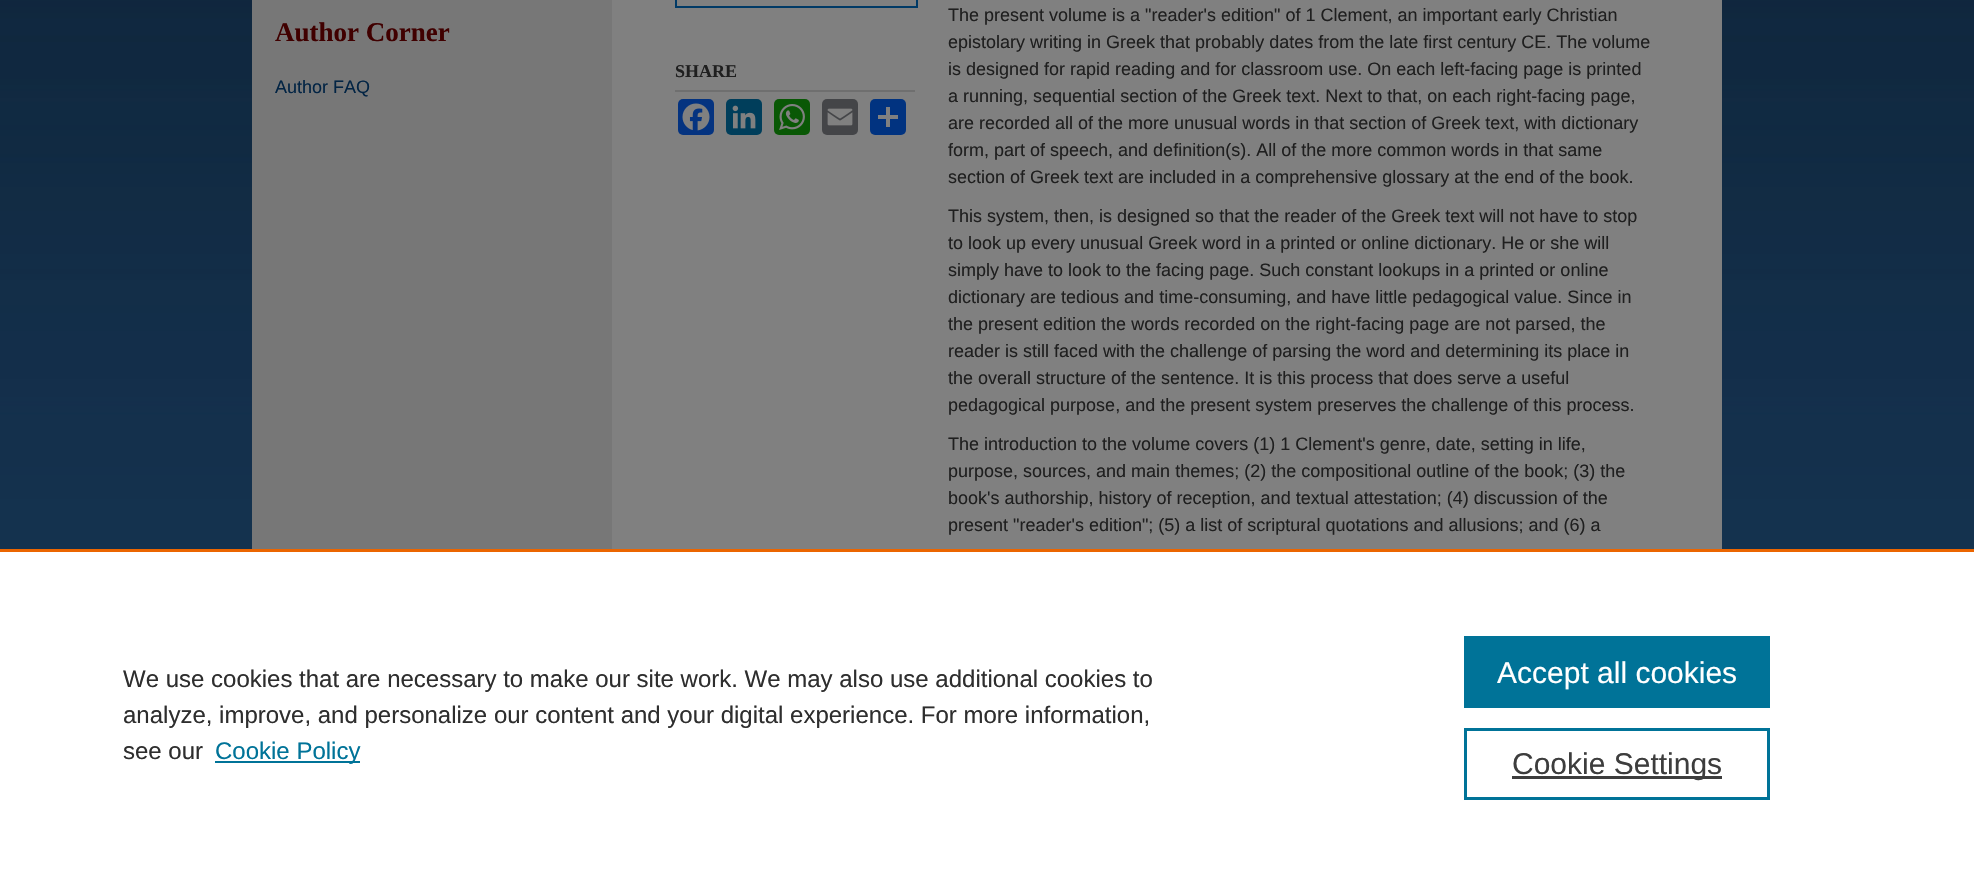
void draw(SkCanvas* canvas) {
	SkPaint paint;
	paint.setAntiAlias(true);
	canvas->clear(0xffffffff);
	canvas->drawImageRect(SkImages::DeferredFromEncodedData(SkData::MakeFromFileName("img1.png")), SkRect::MakeXYWH(0, 0, 1974, 549), SkSamplingOptions());
	paint.setColor(0xff777777);
	canvas->drawRect(SkRect::MakeXYWH(252, 0, 360, 549), paint);
	paint.setColor(0xff808080);
	canvas->drawRect(SkRect::MakeXYWH(612, 0, 1110, 549), paint);
	SkFont f1(fontMgr->matchFamilyStyle("Liberation Serif", SkFontStyle::Bold()), 27);
	f1.setSubpixel(true);
	paint.setColor(0xff400000);
	canvas->drawString("Author Corner", 275, 41, f1, paint);
	SkFont f2(fontMgr->matchFamilyStyle("Liberation Sans", SkFontStyle::Normal()), 18);
	f2.setSubpixel(true);
	paint.setColor(0xff022444);
	canvas->drawString("Author FAQ", 275, 93, f2, paint);
	paint.setStroke(true);
	paint.setStrokeWidth(2);
	paint.setColor(0xff003a66);
	canvas->drawRect(SkRect::MakeXYWH(676, -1, 241, 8), paint);
	paint.setStroke(false);
	paint.setColor(0xff6f6f6f);
	canvas->drawRect(SkRect::MakeXYWH(675, 90, 240, 2), paint);
	SkFont f3(fontMgr->matchFamilyStyle("Liberation Serif", SkFontStyle::Bold()), 18);
	f3.setSubpixel(true);
	paint.setColor(0xff1f1f1f);
	canvas->drawString("SHARE", 675, 77, f3, paint);
	paint.setColor(0xff043380);
	canvas->drawRoundRect(SkRect::MakeXYWH(678, 99, 36, 36), 5, 5, paint);
	canvas->drawImageRect(SkImages::DeferredFromEncodedData(SkData::MakeFromFileName("img2.png")), SkRect::MakeXYWH(682, 103, 28, 28), SkSamplingOptions());
	paint.setColor(0xff003e5b);
	canvas->drawRoundRect(SkRect::MakeXYWH(726, 99, 36, 36), 5, 5, paint);
	canvas->drawImageRect(SkImages::DeferredFromEncodedData(SkData::MakeFromFileName("img3.png")), SkRect::MakeXYWH(732, 105, 24, 24), SkSamplingOptions());
	paint.setColor(0xff095805);
	canvas->drawRoundRect(SkRect::MakeXYWH(774, 99, 36, 36), 5, 5, paint);
	canvas->drawImageRect(SkImages::DeferredFromEncodedData(SkData::MakeFromFileName("img4.png")), SkRect::MakeXYWH(779, 104, 26, 26), SkSamplingOptions());
	paint.setColor(0xff444548);
	canvas->drawRoundRect(SkRect::MakeXYWH(822, 99, 36, 36), 5, 5, paint);
	canvas->drawImageRect(SkImages::DeferredFromEncodedData(SkData::MakeFromFileName("img5.png")), SkRect::MakeXYWH(827, 108, 26, 18), SkSamplingOptions());
	paint.setColor(0xff013380);
	canvas->drawRoundRect(SkRect::MakeXYWH(870, 99, 36, 36), 5, 5, paint);
	paint.setColor(0xff808080);
	canvas->drawRect(SkRect::MakeXYWH(886, 107, 4, 20), paint);
	canvas->drawRect(SkRect::MakeXYWH(878, 115, 20, 4), paint);
	paint.setColor(0xff1f1f1f);
	canvas->drawString("The present volume is a \"reader's edition\" of 1 Clement, an important early Christian", 948, 21, f2, paint);
	canvas->drawString("epistolary writing in Greek that probably dates from the late first century CE. The volume", 948, 48, f2, paint);
	canvas->drawString("is designed for rapid reading and for classroom use. On each left-facing page is printed", 948, 75, f2, paint);
	canvas->drawString("a running, sequential section of the Greek text. Next to that, on each right-facing page,", 948, 102, f2, paint);
	canvas->drawString("are recorded all of the more unusual words in that section of Greek text, with dictionary", 948, 129, f2, paint);
	canvas->drawString("form, part of speech, and definition(s). All of the more common words in that same", 948, 156, f2, paint);
	canvas->drawString("section of Greek text are included in a comprehensive glossary at the end of the book.", 948, 183, f2, paint);
	canvas->drawString("This system, then, is designed so that the reader of the Greek text will not have to stop", 948, 222, f2, paint);
	canvas->drawString("to look up every unusual Greek word in a printed or online dictionary. He or she will", 948, 249, f2, paint);
	canvas->drawString("simply have to look to the facing page. Such constant lookups in a printed or online", 948, 276, f2, paint);
	canvas->drawString("dictionary are tedious and time-consuming, and have little pedagogical value. Since in", 948, 303, f2, paint);
	canvas->drawString("the present edition the words recorded on the right-facing page are not parsed, the", 948, 330, f2, paint);
	canvas->drawString("reader is still faced with the challenge of parsing the word and determining its place in", 948, 357, f2, paint);
	canvas->drawString("the overall structure of the sentence. It is this process that does serve a useful", 948, 384, f2, paint);
	canvas->drawString("pedagogical purpose, and the present system preserves the challenge of this process.", 948, 411, f2, paint);
	canvas->drawString("The introduction to the volume covers (1) 1 Clement's genre, date, setting in life,", 948, 450, f2, paint);
	canvas->drawString("purpose, sources, and main themes; (2) the compositional outline of the book; (3) the", 948, 477, f2, paint);
	canvas->drawString("book's authorship, history of reception, and textual attestation; (4) discussion of the", 948, 504, f2, paint);
	canvas->drawString("present \"reader's edition\"; (5) a list of scriptural quotations and allusions; and (6) a", 948, 531, f2, paint);
	paint.setColor(0xffeb6500);
	canvas->drawRect(SkRect::MakeXYWH(0, 549, 1974, 3), paint);
	SkFont f4(fontMgr->matchFamilyStyle("Liberation Sans", SkFontStyle::Normal()), 24);
	f4.setSubpixel(true);
	paint.setColor(0xff2e2e2e);
	canvas->drawString("We use cookies that are necessary to make our site work. We may also use additional cookies to", 123, 687, f4, paint);
	canvas->drawString("analyze, improve, and personalize our content and your digital experience. For more information,", 123, 723, f4, paint);
	canvas->drawString("see our", 123, 759, f4, paint);
	paint.setColor(0xff007398);
	canvas->drawRect(SkRect::MakeXYWH(215, 761, 145, 2), paint);
	canvas->drawString("Cookie Policy", 215, 759, f4, paint);
	canvas->drawRect(SkRect::MakeXYWH(1464, 636, 306, 72), paint);
	SkFont f5(fontMgr->matchFamilyStyle("Liberation Sans", SkFontStyle::Normal()), 30);
	f5.setSubpixel(true);
	paint.setColor(0xffffffff);
	canvas->drawString("Accept all cookies", 1497, 683, f5, paint);
	paint.setStroke(true);
	paint.setStrokeWidth(3);
	paint.setColor(0xff007398);
	canvas->drawRect(SkRect::MakeXYWH(1465.5, 729.5, 303, 69), paint);
	paint.setStroke(false);
	paint.setColor(0xff3d3d3d);
	canvas->drawRect(SkRect::MakeXYWH(1512, 776, 210, 3), paint);
	canvas->drawString("Cookie Settings", 1512, 774, f5, paint);
}
